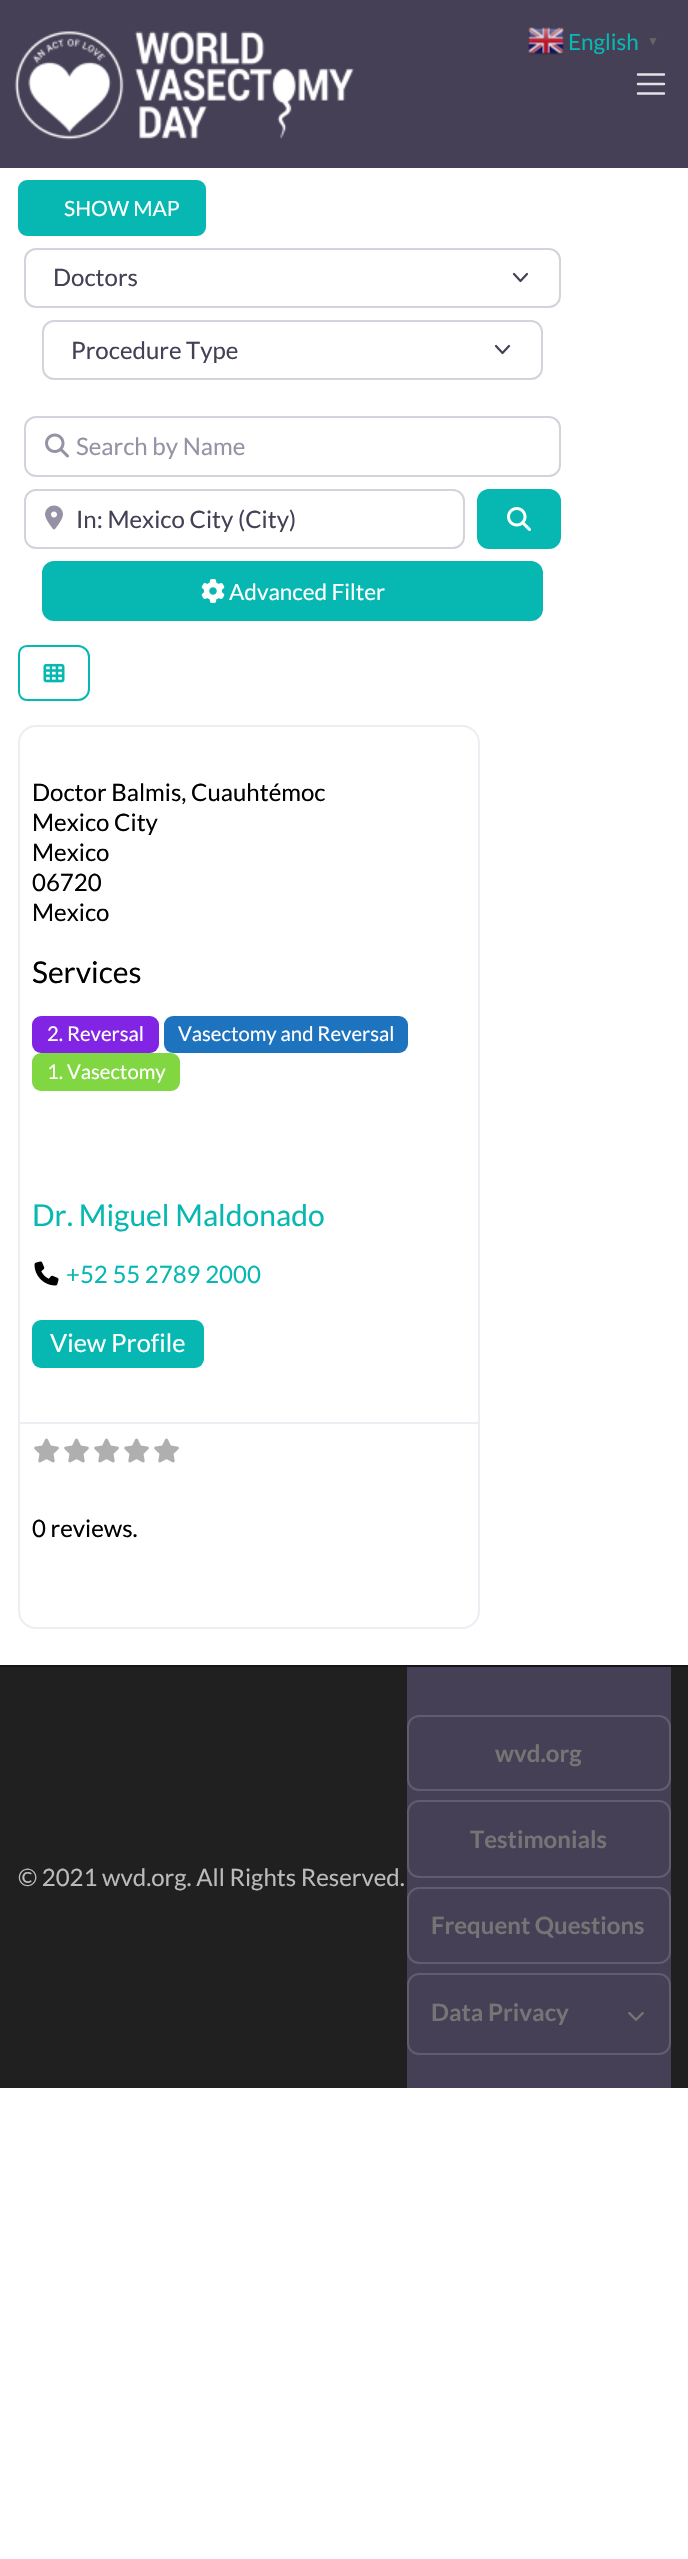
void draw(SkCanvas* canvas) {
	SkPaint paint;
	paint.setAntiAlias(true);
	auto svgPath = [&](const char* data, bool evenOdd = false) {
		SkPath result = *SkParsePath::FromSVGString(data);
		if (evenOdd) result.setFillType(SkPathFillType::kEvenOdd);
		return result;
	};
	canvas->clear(0xffffffff);
	paint.setColor(0xff454056);
	canvas->drawRect(SkRect::MakeXYWH(0, 0, 688, 168), paint);
	canvas->drawImageRect(SkImages::DeferredFromEncodedData(SkData::MakeFromFileName("img1.png")), SkRect::MakeXYWH(14, 31, 341, 109), SkSamplingOptions());
	paint.setStroke(true);
	paint.setStrokeWidth(2.4);
	paint.setStrokeCap(SkPaint::kRound_Cap);
	paint.setColor(0xffe3e2e6);
	canvas->drawPath(svgPath("M638 74.5H664M638 84H664M638 93.5H664"), paint);
	canvas->drawImageRect(SkImages::DeferredFromEncodedData(SkData::MakeFromFileName("img2.png")), SkRect::MakeXYWH(528, 27, 36, 28), SkSamplingOptions());
	SkFont f1(fontMgr->matchFamilyStyle("Lato", SkFontStyle::Normal()), 22.5);
	f1.setSubpixel(true);
	paint.setStroke(false);
	paint.setColor(0xff07b8b2);
	canvas->drawString("English", 568, 50, f1, paint);
	SkFont f2(fontMgr->matchFamilyStyle("Liberation Sans", SkFontStyle::Bold()), 12);
	f2.setSubpixel(true);
	paint.setColor(0xff666666);
	canvas->drawString("▼", 647, 45, f2, paint);
	paint.setColor(0xff07b8b2);
	canvas->drawRoundRect(SkRect::MakeXYWH(19, 181, 186, 54), 8, 8, paint);
	paint.setStroke(true);
	paint.setStrokeWidth(2);
	paint.setStrokeCap(SkPaint::kButt_Cap);
	canvas->drawRoundRect(SkRect::MakeXYWH(19, 181, 186, 54), 8, 8, paint);
	SkFont f3(fontMgr->matchFamilyStyle("Lato", SkFontStyle::Normal()), 21);
	f3.setSubpixel(true);
	paint.setStroke(false);
	paint.setColor(0xffffffff);
	canvas->drawString("SHOW MAP", 64, 216, f3, paint);
	paint.setStroke(true);
	paint.setStrokeWidth(2.2);
	paint.setStrokeCap(SkPaint::kRound_Cap);
	paint.setStrokeJoin(SkPaint::kRound_Join);
	paint.setColor(0xff454056);
	canvas->drawPath(svgPath("M514 274L520.5 281L527 274"), paint);
	paint.setStrokeWidth(2);
	paint.setStrokeCap(SkPaint::kButt_Cap);
	paint.setStrokeJoin(SkPaint::kMiter_Join);
	paint.setColor(0xffd5d2dc);
	canvas->drawRoundRect(SkRect::MakeXYWH(25, 249, 535, 58), 11, 11, paint);
	SkFont f4(fontMgr->matchFamilyStyle("Lato", SkFontStyle::Normal()), 24);
	f4.setSubpixel(true);
	paint.setStroke(false);
	paint.setColor(0xff454056);
	canvas->drawString("Doctors", 53, 286, f4, paint);
	paint.setStroke(true);
	paint.setStrokeWidth(2.2);
	paint.setStrokeCap(SkPaint::kRound_Cap);
	paint.setStrokeJoin(SkPaint::kRound_Join);
	canvas->drawPath(svgPath("M496 346L502.5 353L509 346"), paint);
	paint.setStrokeWidth(2);
	paint.setStrokeCap(SkPaint::kButt_Cap);
	paint.setStrokeJoin(SkPaint::kMiter_Join);
	paint.setColor(0xffd5d2dc);
	canvas->drawRoundRect(SkRect::MakeXYWH(43, 321, 499, 58), 11, 11, paint);
	paint.setStroke(false);
	paint.setColor(0xff454056);
	canvas->drawString("Procedure Type", 71, 359, f4, paint);
	paint.setStroke(true);
	paint.setColor(0xffd5d2dc);
	canvas->drawRoundRect(SkRect::MakeXYWH(25, 417, 535, 59), 11, 11, paint);
	canvas->drawImageRect(SkImages::DeferredFromEncodedData(SkData::MakeFromFileName("img3.png")), SkRect::MakeXYWH(45, 433, 24, 25), SkSamplingOptions());
	paint.setStroke(false);
	paint.setColor(0xff9691a4);
	canvas->drawString("Search by Name", 76, 455, f4, paint);
	paint.setStroke(true);
	paint.setColor(0xffd5d2dc);
	canvas->drawRoundRect(SkRect::MakeXYWH(25, 490, 439, 58), 11, 11, paint);
	canvas->drawImageRect(SkImages::DeferredFromEncodedData(SkData::MakeFromFileName("img4.png")), SkRect::MakeXYWH(45, 505, 18, 25), SkSamplingOptions());
	paint.setStroke(false);
	paint.setColor(0xff454056);
	canvas->drawString("In: Mexico City (City)", 76, 528, f4, paint);
	paint.setColor(0xff07b8b2);
	canvas->drawRoundRect(SkRect::MakeXYWH(478, 490, 82, 58), 11, 11, paint);
	paint.setStroke(true);
	canvas->drawRoundRect(SkRect::MakeXYWH(478, 490, 82, 58), 11, 11, paint);
	canvas->drawImageRect(SkImages::DeferredFromEncodedData(SkData::MakeFromFileName("img5.png")), SkRect::MakeXYWH(507, 507, 24, 24), SkSamplingOptions());
	paint.setStroke(false);
	canvas->drawRoundRect(SkRect::MakeXYWH(43, 562, 499, 58), 11, 11, paint);
	paint.setStroke(true);
	canvas->drawRoundRect(SkRect::MakeXYWH(43, 562, 499, 58), 11, 11, paint);
	canvas->drawImageRect(SkImages::DeferredFromEncodedData(SkData::MakeFromFileName("img6.png")), SkRect::MakeXYWH(201, 579, 24, 24), SkSamplingOptions());
	paint.setStroke(false);
	paint.setColor(0xffffffff);
	canvas->drawString("Advanced Filter", 229, 600, f1, paint);
	paint.setStroke(true);
	paint.setColor(0xff07b8b2);
	canvas->drawPath(svgPath("M27 646H78C84 646 89 651 89 657V689C89 695 84 700 78 700H27C22.5 700 19 696.5 19 692V654C19 649.5 22.5 646 27 646Z"), paint);
	canvas->drawImageRect(SkImages::DeferredFromEncodedData(SkData::MakeFromFileName("img7.png")), SkRect::MakeXYWH(43, 663, 22, 20), SkSamplingOptions());
	paint.setColor(0xffefecf3);
	canvas->drawRoundRect(SkRect::MakeXYWH(19, 726, 460, 902), 17, 17, paint);
	paint.setStroke(false);
	paint.setColor(0xff000000);
	canvas->drawString("Doctor Balmis, Cuauhtémoc", 32, 801, f4, paint);
	canvas->drawString("Mexico City", 32, 831, f4, paint);
	canvas->drawString("Mexico", 32, 861, f4, paint);
	canvas->drawString("06720", 32, 891, f4, paint);
	canvas->drawString("Mexico", 32, 921, f4, paint);
	SkFont f5(fontMgr->matchFamilyStyle("Lato", SkFontStyle::Normal()), 30);
	f5.setSubpixel(true);
	canvas->drawString("Services", 32, 983, f5, paint);
	paint.setColor(0xff8224e3);
	canvas->drawRoundRect(SkRect::MakeXYWH(32, 1016, 127, 37), 9, 9, paint);
	SkFont f6(fontMgr->matchFamilyStyle("Lato", SkFontStyle::Normal()), 20.25);
	f6.setSubpixel(true);
	paint.setColor(0xffffffff);
	canvas->drawString("2. Reversal", 47, 1041, f6, paint);
	paint.setColor(0xff1e73be);
	canvas->drawRoundRect(SkRect::MakeXYWH(164, 1016, 244, 37), 9, 9, paint);
	paint.setColor(0xffffffff);
	canvas->drawString("Vasectomy and Reversal", 178, 1041, f6, paint);
	paint.setColor(0xff81d742);
	canvas->drawRoundRect(SkRect::MakeXYWH(32, 1053, 148, 38), 9, 9, paint);
	paint.setColor(0xffffffff);
	canvas->drawString("1. Vasectomy", 47, 1079, f6, paint);
	paint.setColor(0xff07b8b2);
	canvas->drawString("Dr. Miguel Maldonado", 32, 1226, f5, paint);
	canvas->drawImageRect(SkImages::DeferredFromEncodedData(SkData::MakeFromFileName("img8.png")), SkRect::MakeXYWH(34, 1261, 25, 25), SkSamplingOptions());
	canvas->drawString("+52 55 2789 2000", 66, 1283, f4, paint);
	canvas->drawRoundRect(SkRect::MakeXYWH(32, 1320, 172, 48), 9, 9, paint);
	SkFont f7(fontMgr->matchFamilyStyle("Lato", SkFontStyle::Normal()), 25.25);
	f7.setSubpixel(true);
	paint.setColor(0xffffffff);
	canvas->drawString("View Profile", 50, 1352, f7, paint);
	paint.setColor(0xffefecf3);
	canvas->drawRect(SkRect::MakeXYWH(20, 1422, 459, 2), paint);
	canvas->drawImageRect(SkImages::DeferredFromEncodedData(SkData::MakeFromFileName("img9.png")), SkRect::MakeXYWH(34, 1438, 25, 25), SkSamplingOptions());
	canvas->drawImageRect(SkImages::DeferredFromEncodedData(SkData::MakeFromFileName("img9.png")), SkRect::MakeXYWH(64, 1438, 25, 25), SkSamplingOptions());
	canvas->drawImageRect(SkImages::DeferredFromEncodedData(SkData::MakeFromFileName("img9.png")), SkRect::MakeXYWH(94, 1438, 25, 25), SkSamplingOptions());
	canvas->drawImageRect(SkImages::DeferredFromEncodedData(SkData::MakeFromFileName("img9.png")), SkRect::MakeXYWH(124, 1438, 25, 25), SkSamplingOptions());
	canvas->drawImageRect(SkImages::DeferredFromEncodedData(SkData::MakeFromFileName("img9.png")), SkRect::MakeXYWH(154, 1438, 25, 25), SkSamplingOptions());
	paint.setColor(0xff000000);
	canvas->drawString("0 reviews.", 32, 1537, f4, paint);
	paint.setColor(0xff202020);
	canvas->drawRect(SkRect::MakeXYWH(0, 1667, 688, 421), paint);
	paint.setColor(0xff151515);
	canvas->drawRect(SkRect::MakeXYWH(0, 1665, 688, 2), paint);
	paint.setColor(0xffbbbbbb);
	canvas->drawString("© 2021 wvd.org. All Rights Reserved.", 18, 1886, f4, paint);
	paint.setColor(0xff454056);
	canvas->drawRect(SkRect::MakeXYWH(407, 1667, 264, 421), paint);
	paint.setStroke(true);
	paint.setColor(0xff615d6f);
	canvas->drawRoundRect(SkRect::MakeXYWH(408, 1716, 262, 74), 11, 11, paint);
	SkFont f8(fontMgr->matchFamilyStyle("Lato", SkFontStyle::Bold()), 24);
	f8.setSubpixel(true);
	paint.setStroke(false);
	paint.setColor(0xff757575);
	canvas->drawString("wvd.org", 495, 1762, f8, paint);
	paint.setStroke(true);
	paint.setColor(0xff615d6f);
	canvas->drawRoundRect(SkRect::MakeXYWH(408, 1801, 262, 76), 11, 11, paint);
	paint.setStroke(false);
	paint.setColor(0xff757575);
	canvas->drawString("Testimonials", 470, 1848, f8, paint);
	paint.setStroke(true);
	paint.setColor(0xff615d6f);
	canvas->drawRoundRect(SkRect::MakeXYWH(408, 1888, 262, 75), 11, 11, paint);
	paint.setStroke(false);
	paint.setColor(0xff757575);
	canvas->drawString("Frequent Questions", 431, 1934, f8, paint);
	paint.setStroke(true);
	paint.setColor(0xff615d6f);
	canvas->drawRoundRect(SkRect::MakeXYWH(408, 1974, 262, 80), 11, 11, paint);
	paint.setStroke(false);
	paint.setColor(0xff757575);
	canvas->drawString("Data Privacy", 431, 2021, f8, paint);
	canvas->drawImageRect(SkImages::DeferredFromEncodedData(SkData::MakeFromFileName("img10.png")), SkRect::MakeXYWH(628, 2012, 16, 9), SkSamplingOptions());
}
